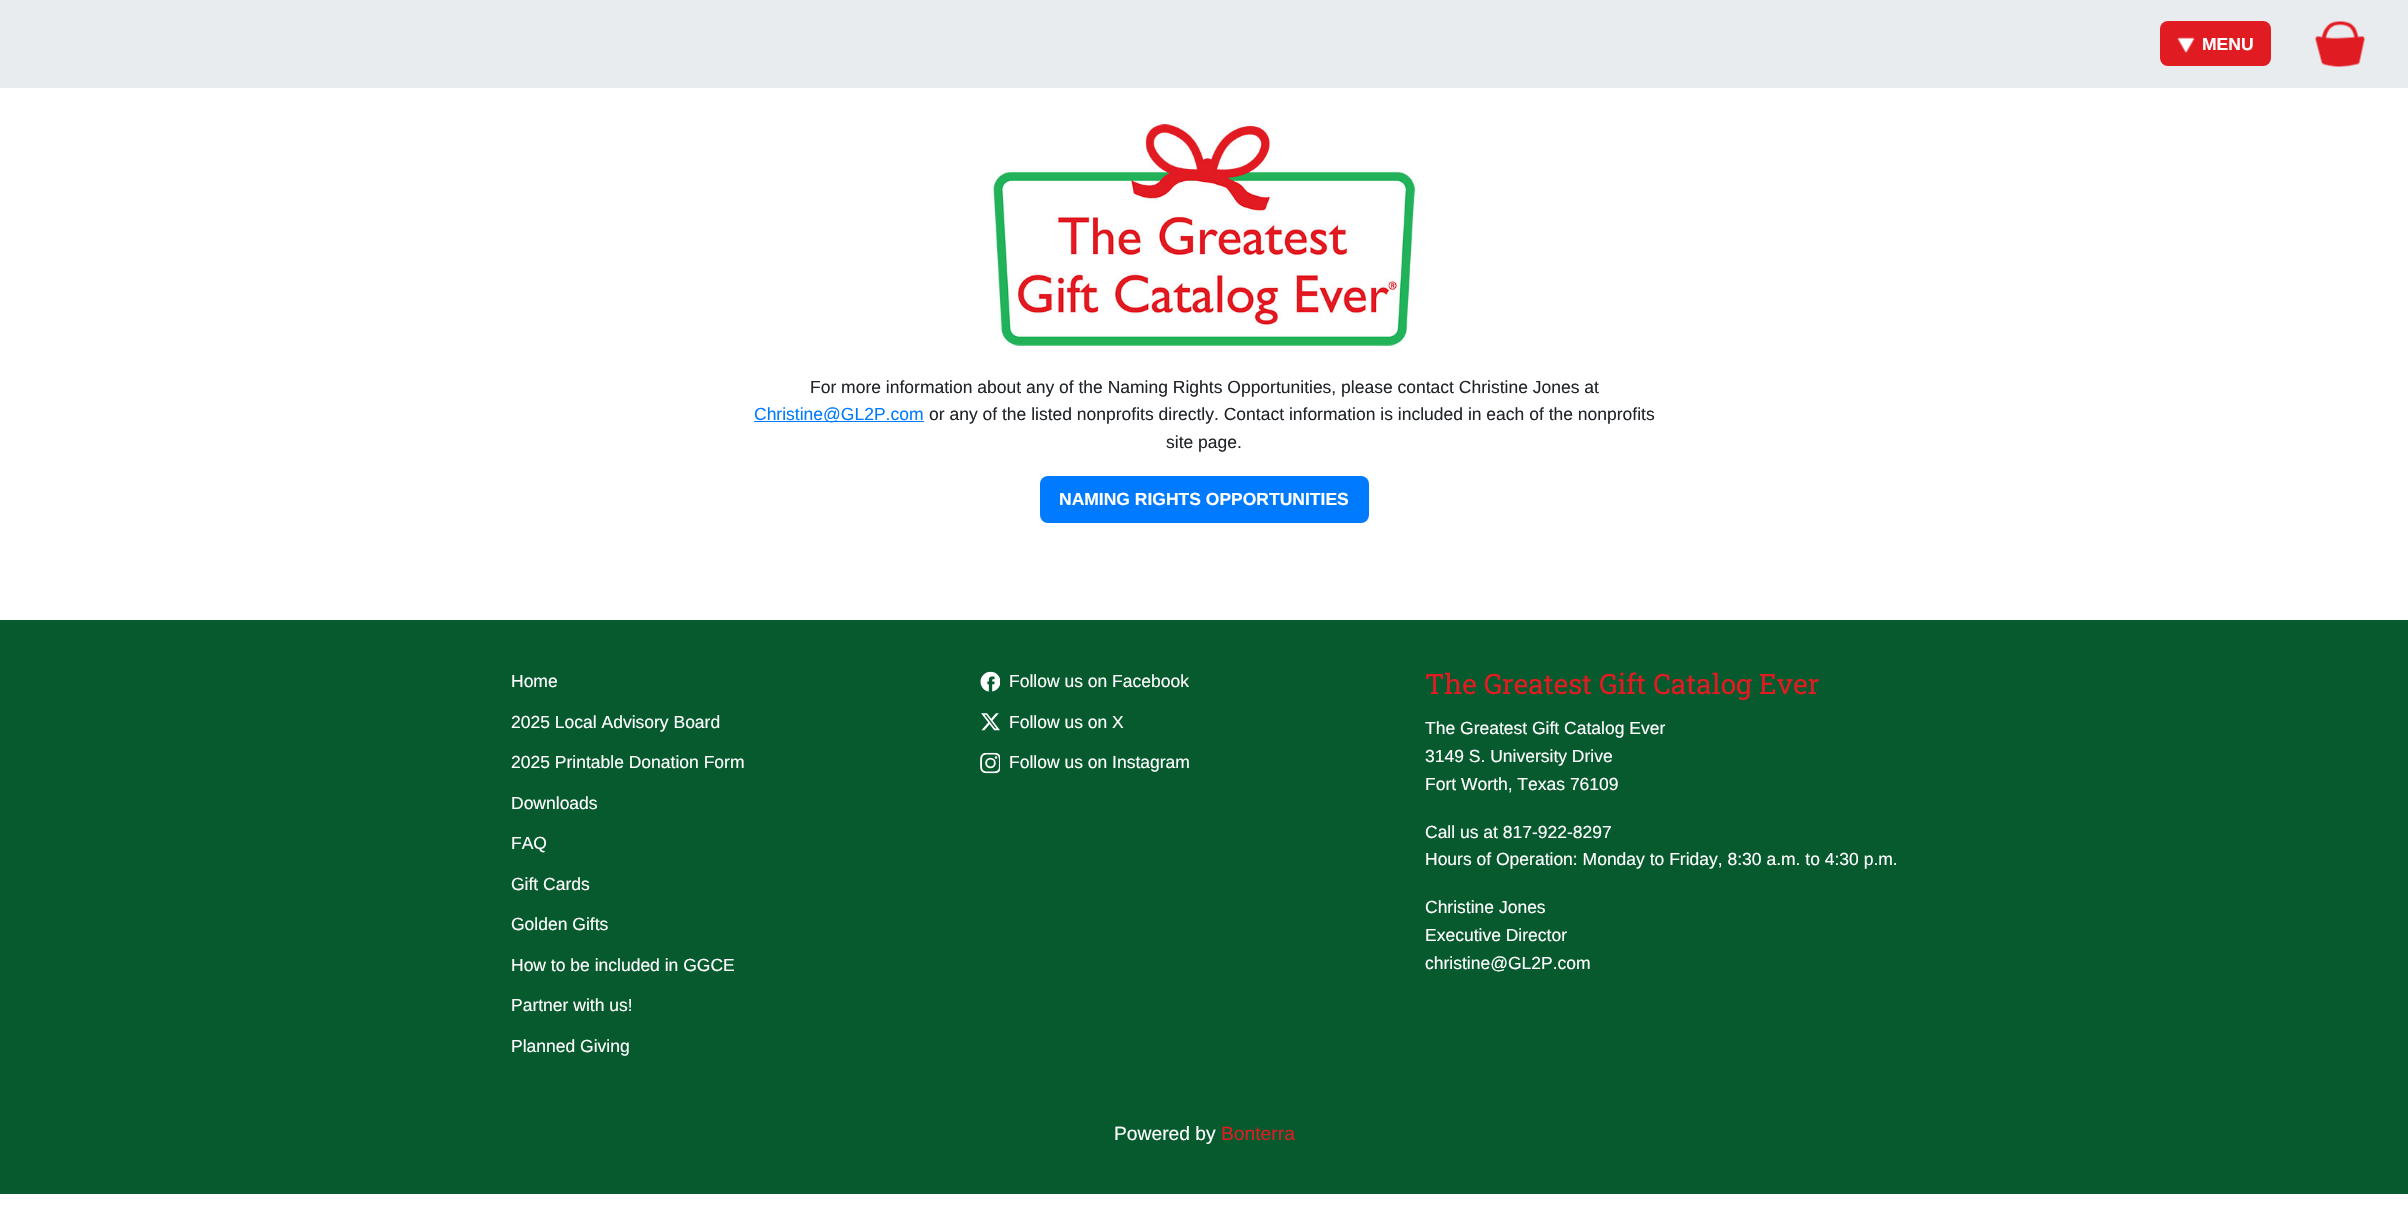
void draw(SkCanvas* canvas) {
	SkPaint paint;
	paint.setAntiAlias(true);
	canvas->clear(0xffffffff);
	paint.setColor(0xffe9ecef);
	canvas->drawRect(SkRect::MakeXYWH(0, 0, 2408, 88), paint);
	paint.setColor(0xffe11b22);
	canvas->drawRoundRect(SkRect::MakeXYWH(2160, 21, 111, 45), 8, 8, paint);
	canvas->drawImageRect(SkImages::DeferredFromEncodedData(SkData::MakeFromFileName("img1.png")), SkRect::MakeXYWH(2177, 37, 18, 16), SkSamplingOptions());
	SkFont f1(fontMgr->matchFamilyStyle("Liberation Sans", SkFontStyle::Bold()), 17.5);
	f1.setSubpixel(true);
	paint.setColor(0xffffffff);
	canvas->drawString("MENU", 2202, 50, f1, paint);
	canvas->drawImageRect(SkImages::DeferredFromEncodedData(SkData::MakeFromFileName("img2.png")), SkRect::MakeXYWH(2315, 21, 50, 46), SkSamplingOptions());
	canvas->drawImageRect(SkImages::DeferredFromEncodedData(SkData::MakeFromFileName("img3.png")), SkRect::MakeXYWH(990, 123, 429, 223), SkSamplingOptions());
	SkFont f2(fontMgr->matchFamilyStyle("Liberation Sans", SkFontStyle::Normal()), 17.5);
	f2.setSubpixel(true);
	paint.setColor(0xff212529);
	canvas->drawString("For more information about any of the Naming Rights Opportunities, please contact Christine Jones at", 810, 393, f2, paint);
	paint.setColor(0xff007bff);
	canvas->drawRect(SkRect::MakeXYWH(754, 421, 170, 1), paint);
	canvas->drawString("Christine@GL2P.com", 754, 420, f2, paint);
	paint.setColor(0xff212529);
	canvas->drawString("or any of the listed nonprofits directly. Contact information is included in each of the nonprofits", 929, 420, f2, paint);
	canvas->drawString("site page.", 1166, 448, f2, paint);
	paint.setColor(0xff007bff);
	canvas->drawRoundRect(SkRect::MakeXYWH(1040, 476, 329, 47), 8, 8, paint);
	paint.setColor(0xffffffff);
	canvas->drawString("NAMING RIGHTS OPPORTUNITIES", 1059, 505, f1, paint);
	paint.setColor(0xff07592e);
	canvas->drawRect(SkRect::MakeXYWH(0, 620, 2408, 574), paint);
	paint.setColor(0xffffffff);
	canvas->drawString("Home", 511, 687, f2, paint);
	canvas->drawString("2025 Local Advisory Board", 511, 728, f2, paint);
	canvas->drawString("2025 Printable Donation Form", 511, 768, f2, paint);
	canvas->drawString("Downloads", 511, 809, f2, paint);
	canvas->drawString("FAQ", 511, 849, f2, paint);
	canvas->drawString("Gift Cards", 511, 890, f2, paint);
	canvas->drawString("Golden Gifts", 511, 930, f2, paint);
	canvas->drawString("How to be included in GGCE", 511, 971, f2, paint);
	canvas->drawString("Partner with us!", 511, 1011, f2, paint);
	canvas->drawString("Planned Giving", 511, 1052, f2, paint);
	canvas->drawImageRect(SkImages::DeferredFromEncodedData(SkData::MakeFromFileName("img4.png")), SkRect::MakeXYWH(980, 671, 20, 21), SkSamplingOptions());
	canvas->drawString("Follow us on Facebook", 1009, 687, f2, paint);
	canvas->drawImageRect(SkImages::DeferredFromEncodedData(SkData::MakeFromFileName("img5.png")), SkRect::MakeXYWH(981, 713, 19, 18), SkSamplingOptions());
	canvas->drawString("Follow us on X", 1009, 728, f2, paint);
	canvas->drawImageRect(SkImages::DeferredFromEncodedData(SkData::MakeFromFileName("img6.png")), SkRect::MakeXYWH(980, 752, 20, 22), SkSamplingOptions());
	canvas->drawString("Follow us on Instagram", 1009, 768, f2, paint);
	SkFont f3(fontMgr->matchFamilyStyle("Roboto Slab", SkFontStyle::Normal()), 28);
	f3.setSubpixel(true);
	paint.setColor(0xffe11b22);
	canvas->drawString("The Greatest Gift Catalog Ever", 1425, 694, f3, paint);
	paint.setColor(0xffffffff);
	canvas->drawString("The Greatest Gift Catalog Ever", 1425, 734, f2, paint);
	canvas->drawString("3149 S. University Drive", 1425, 762, f2, paint);
	canvas->drawString("Fort Worth, Texas 76109", 1425, 790, f2, paint);
	canvas->drawString("Call us at 817-922-8297", 1425, 838, f2, paint);
	canvas->drawString("Hours of Operation: Monday to Friday, 8:30 a.m. to 4:30 p.m.", 1425, 865, f2, paint);
	canvas->drawString("Christine Jones", 1425, 913, f2, paint);
	canvas->drawString("Executive Director", 1425, 941, f2, paint);
	canvas->drawString("christine@GL2P.com", 1425, 969, f2, paint);
	SkFont f4(fontMgr->matchFamilyStyle("Liberation Sans", SkFontStyle::Normal()), 19.25);
	f4.setSubpixel(true);
	canvas->drawString("Powered by", 1114, 1140, f4, paint);
	paint.setColor(0xffe11b22);
	canvas->drawString("Bonterra", 1221, 1140, f4, paint);
}
